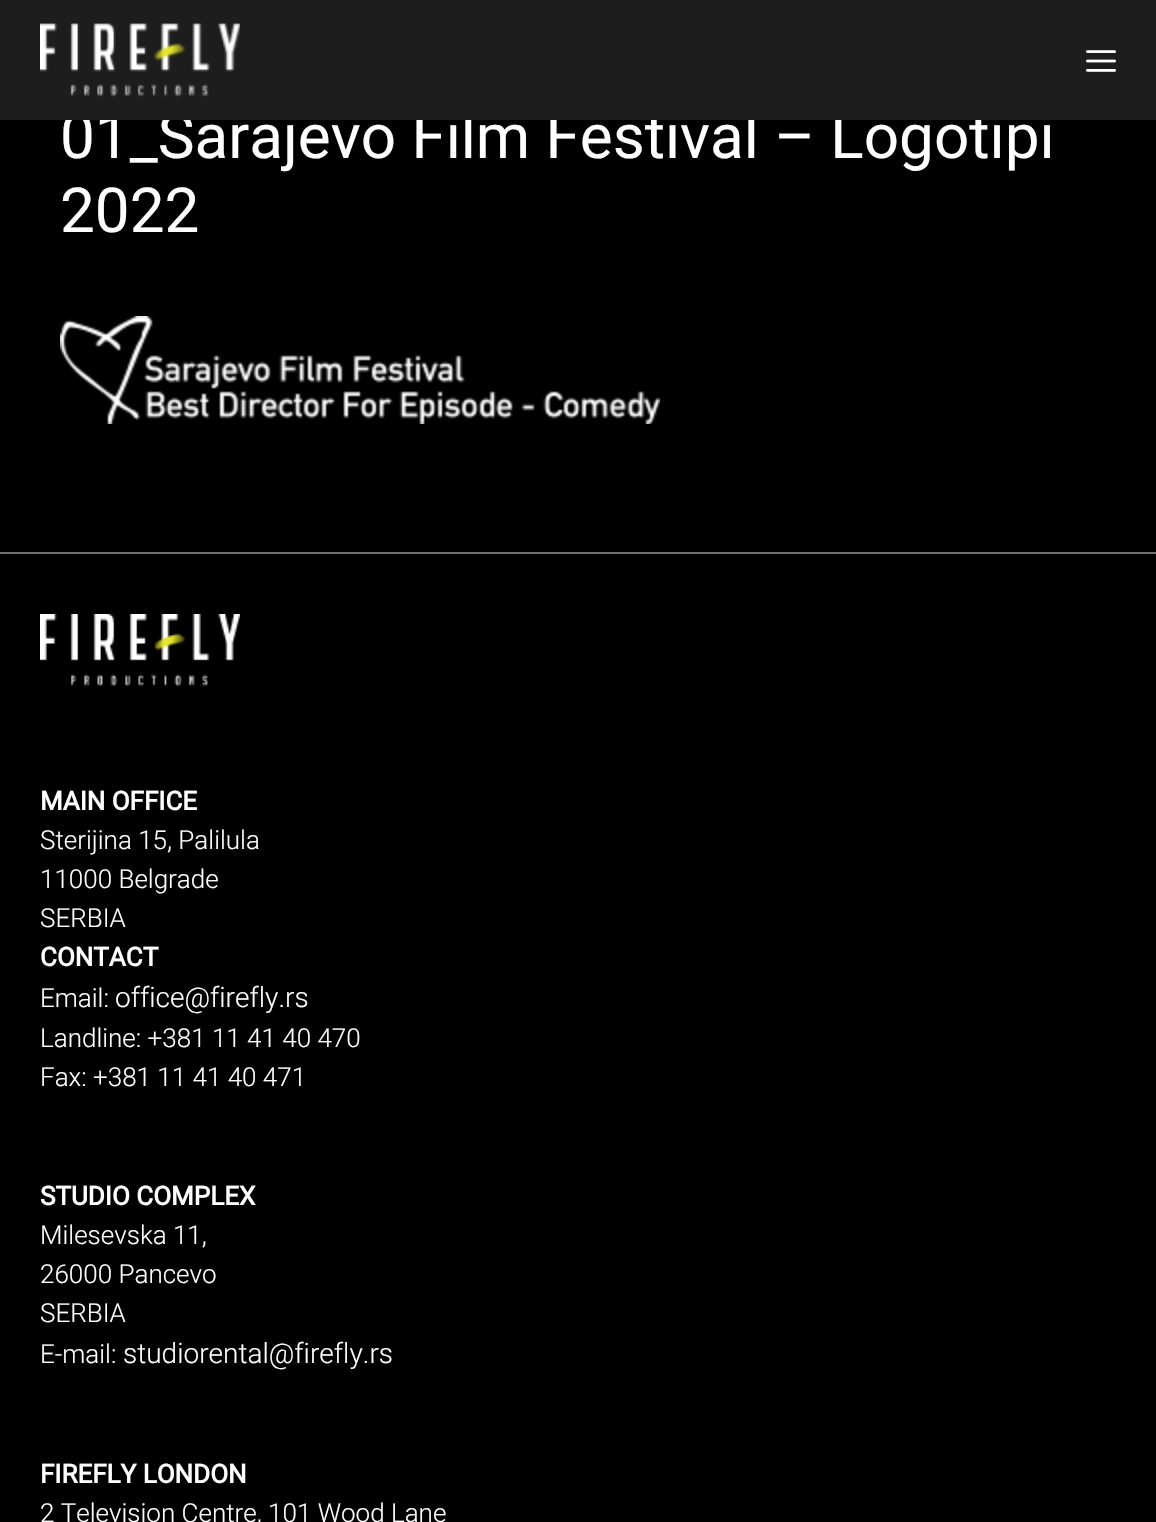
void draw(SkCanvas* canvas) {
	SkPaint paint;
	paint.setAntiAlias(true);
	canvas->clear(0xff000000);
	paint.setColor(0x73000000);
	paint.setMaskFilter(SkMaskFilter::MakeBlur(kNormal_SkBlurStyle, 8));
	canvas->drawRect(SkRect::MakeXYWH(0, 0, 1156, 120), paint);
	paint.setMaskFilter(nullptr);
	SkFont f1(fontMgr->matchFamilyStyle("Roboto", SkFontStyle::Normal()), 62);
	f1.setSubpixel(true);
	paint.setColor(0xffffffff);
	canvas->drawString("01_Sarajevo Film Festival – Logotipi", 60, 158, f1, paint);
	paint.setColor(0xff1d1d1d);
	canvas->drawRect(SkRect::MakeXYWH(0, 0, 1156, 120), paint);
	canvas->drawImageRect(SkImages::DeferredFromEncodedData(SkData::MakeFromFileName("img1.png")), SkRect::MakeXYWH(40, 23, 200, 74), SkSamplingOptions());
	canvas->drawImageRect(SkImages::DeferredFromEncodedData(SkData::MakeFromFileName("img2.png")), SkRect::MakeXYWH(1086, 50, 30, 22), SkSamplingOptions());
	paint.setColor(0xffffffff);
	canvas->drawString("2022", 60, 232, f1, paint);
	canvas->drawImageRect(SkImages::DeferredFromEncodedData(SkData::MakeFromFileName("img3.png")), SkRect::MakeXYWH(60, 316, 600, 108), SkSamplingOptions());
	paint.setColor(0xff707070);
	canvas->drawRect(SkRect::MakeXYWH(0, 552, 1156, 2), paint);
	canvas->drawImageRect(SkImages::DeferredFromEncodedData(SkData::MakeFromFileName("img4.png")), SkRect::MakeXYWH(40, 614, 200, 72), SkSamplingOptions());
	SkFont f2(fontMgr->matchFamilyStyle("Roboto", SkFontStyle::Bold()), 26);
	f2.setSubpixel(true);
	paint.setColor(0xffffffff);
	canvas->drawString("MAIN OFFICE", 40, 810, f2, paint);
	SkFont f3(fontMgr->matchFamilyStyle("Roboto", SkFontStyle(300, SkFontStyle::kNormal_Width, SkFontStyle::kUpright_Slant)), 26);
	f3.setSubpixel(true);
	canvas->drawString("Sterijina 15, Palilula", 40, 849, f3, paint);
	canvas->drawString("11000 Belgrade", 40, 888, f3, paint);
	canvas->drawString("SERBIA", 40, 927, f3, paint);
	canvas->drawString("CONTACT", 40, 966, f2, paint);
	canvas->drawString("Email:", 40, 1007, f3, paint);
	SkFont f4(fontMgr->matchFamilyStyle("Roboto", SkFontStyle(300, SkFontStyle::kNormal_Width, SkFontStyle::kUpright_Slant)), 28);
	f4.setSubpixel(true);
	canvas->drawString("office@firefly.rs", 115, 1007, f4, paint);
	canvas->drawString("Landline: +381 11 41 40 470", 40, 1047, f3, paint);
	canvas->drawString("Fax: +381 11 41 40 471", 40, 1086, f3, paint);
	canvas->drawString("STUDIO COMPLEX", 40, 1205, f2, paint);
	canvas->drawString("Milesevska 11,", 40, 1244, f3, paint);
	canvas->drawString("26000 Pancevo", 40, 1283, f3, paint);
	canvas->drawString("SERBIA", 40, 1322, f3, paint);
	canvas->drawString("E-mail:", 40, 1363, f3, paint);
	canvas->drawString("studiorental@firefly.rs", 123, 1363, f4, paint);
	canvas->drawString("FIREFLY LONDON", 40, 1483, f2, paint);
	canvas->drawString("2 Television Centre, 101 Wood Lane", 40, 1522, f3, paint);
}
